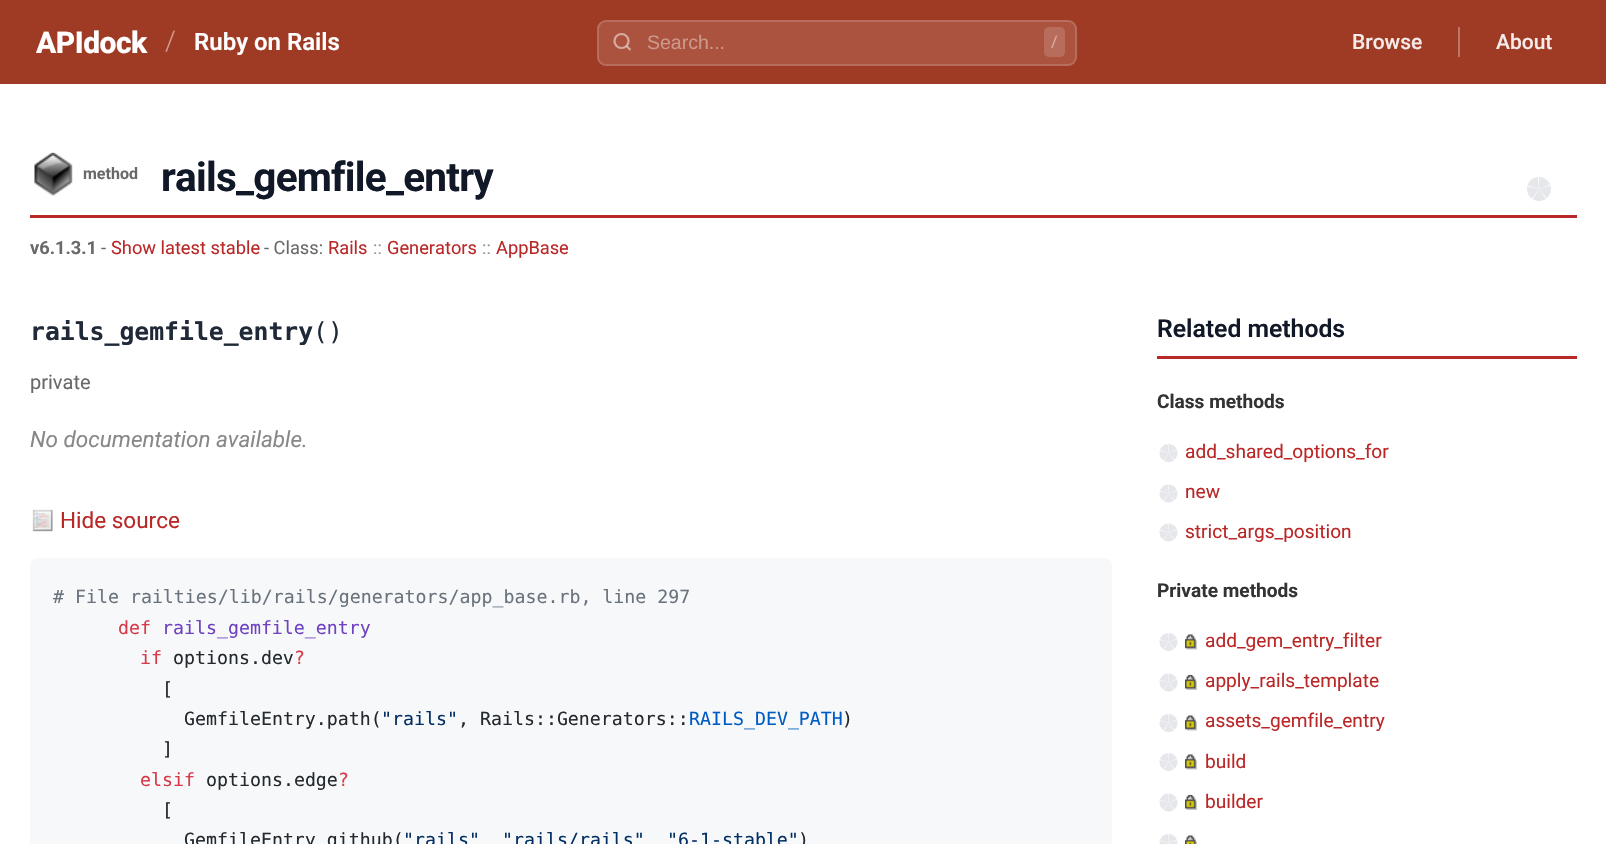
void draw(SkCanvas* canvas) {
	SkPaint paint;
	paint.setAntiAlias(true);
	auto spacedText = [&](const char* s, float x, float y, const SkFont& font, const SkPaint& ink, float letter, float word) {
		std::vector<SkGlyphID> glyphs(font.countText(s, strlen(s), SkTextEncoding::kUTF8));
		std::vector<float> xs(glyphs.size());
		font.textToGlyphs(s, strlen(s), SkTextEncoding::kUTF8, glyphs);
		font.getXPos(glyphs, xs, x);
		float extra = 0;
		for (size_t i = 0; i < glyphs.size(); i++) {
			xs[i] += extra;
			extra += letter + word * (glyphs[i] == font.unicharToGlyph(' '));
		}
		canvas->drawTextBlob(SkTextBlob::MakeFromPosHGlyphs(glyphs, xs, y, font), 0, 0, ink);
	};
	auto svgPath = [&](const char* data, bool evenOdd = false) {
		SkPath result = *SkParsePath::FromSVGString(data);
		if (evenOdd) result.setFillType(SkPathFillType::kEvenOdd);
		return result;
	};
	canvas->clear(0xffffffff);
	paint.setColor(0xff9f3b25);
	canvas->drawRect(SkRect::MakeXYWH(0, 0, 1606, 84), paint);
	SkFont f1(fontMgr->matchFamilyStyle("Roboto", SkFontStyle(800, SkFontStyle::kNormal_Width, SkFontStyle::kUpright_Slant)), 30);
	f1.setSubpixel(true);
	paint.setColor(0xffffffff);
	spacedText("APIdock", 36, 53, f1, paint, -0.5, 0);
	SkFont f2(fontMgr->matchFamilyStyle("Roboto", SkFontStyle(300, SkFontStyle::kNormal_Width, SkFontStyle::kUpright_Slant)), 27);
	f2.setSubpixel(true);
	paint.setColor(0xffcf9d92);
	canvas->drawString("/", 165, 50, f2, paint);
	SkFont f3(fontMgr->matchFamilyStyle("Roboto", SkFontStyle(600, SkFontStyle::kNormal_Width, SkFontStyle::kUpright_Slant)), 24);
	f3.setSubpixel(true);
	paint.setColor(0xffffffff);
	canvas->drawString("Ruby on Rails", 194, 50, f3, paint);
	paint.setColor(0xffab533f);
	canvas->drawRoundRect(SkRect::MakeXYWH(597, 20, 480, 46), 9, 9, paint);
	paint.setStroke(true);
	paint.setStrokeWidth(2);
	paint.setColor(0x26ffffff);
	canvas->drawRoundRect(SkRect::MakeXYWH(598, 21, 478, 44), 8, 8, paint);
	paint.setStrokeWidth(2.2);
	paint.setColor(0xffd5a99f);
	canvas->drawCircle(621.5, 41, 7, paint);
	paint.setColor(0x80ffffff);
	canvas->drawPath(svgPath("M630.5 50L626.5 46"), paint);
	SkFont f4(fontMgr->matchFamilyStyle("Liberation Sans", SkFontStyle::Normal()), 19.5);
	f4.setSubpixel(true);
	paint.setStroke(false);
	paint.setColor(0xffcd988c);
	canvas->drawString("Search...", 647, 49, f4, paint);
	paint.setColor(0xffb86d5c);
	canvas->drawRoundRect(SkRect::MakeXYWH(1044, 27, 21, 30), 5, 5, paint);
	SkFont f5(fontMgr->matchFamilyStyle("Roboto", SkFontStyle::Normal()), 16);
	f5.setSubpixel(true);
	paint.setColor(0xffd8afa5);
	canvas->drawString("/", 1051, 47, f5, paint);
	SkFont f6(fontMgr->matchFamilyStyle("Roboto", SkFontStyle(500, SkFontStyle::kNormal_Width, SkFontStyle::kUpright_Slant)), 21);
	f6.setSubpixel(true);
	paint.setColor(0xfff5ebe9);
	canvas->drawString("Browse", 1352, 49, f6, paint);
	paint.setColor(0xffbc7666);
	canvas->drawRect(SkRect::MakeXYWH(1458, 27, 2, 30), paint);
	paint.setColor(0xfff5ebe9);
	canvas->drawString("About", 1496, 49, f6, paint);
	paint.setColor(0xffba2727);
	canvas->drawRect(SkRect::MakeXYWH(30, 215, 1547, 3), paint);
	canvas->drawImageRect(SkImages::DeferredFromEncodedData(SkData::MakeFromFileName("img1.png")), SkRect::MakeXYWH(34, 152, 39, 44), SkSamplingOptions());
	SkFont f7(fontMgr->matchFamilyStyle("Roboto", SkFontStyle::Bold()), 16);
	f7.setSubpixel(true);
	paint.setColor(0xff696969);
	canvas->drawString("method", 83, 179, f7, paint);
	SkFont f8(fontMgr->matchFamilyStyle("Roboto", SkFontStyle::Bold()), 40.5);
	f8.setSubpixel(true);
	paint.setColor(0xff111827);
	spacedText("rails_gemfile_entry", 161, 191, f8, paint, -0.75, 0);
	canvas->drawImageRect(SkImages::DeferredFromEncodedData(SkData::MakeFromFileName("img2.png")), SkRect::MakeXYWH(1527, 177, 24, 24), SkSamplingOptions());
	SkFont f9(fontMgr->matchFamilyStyle("Roboto", SkFontStyle::Bold()), 18.25);
	f9.setSubpixel(true);
	paint.setColor(0xff696969);
	canvas->drawString("v6.1.3.1", 30, 254, f9, paint);
	SkFont f10(fontMgr->matchFamilyStyle("Roboto", SkFontStyle::Normal()), 18.25);
	f10.setSubpixel(true);
	canvas->drawString("-", 101, 254, f10, paint);
	paint.setColor(0xffba2727);
	canvas->drawString("Show latest stable", 111, 254, f10, paint);
	paint.setColor(0xff696969);
	canvas->drawString("- Class:", 264, 254, f10, paint);
	paint.setColor(0xffba2727);
	canvas->drawString("Rails", 328, 254, f10, paint);
	paint.setColor(0xff999999);
	canvas->drawString("::", 373, 254, f10, paint);
	paint.setColor(0xffba2727);
	canvas->drawString("Generators", 387, 254, f10, paint);
	paint.setColor(0xff999999);
	canvas->drawString("::", 482, 254, f10, paint);
	paint.setColor(0xffba2727);
	canvas->drawString("AppBase", 496, 254, f10, paint);
	SkFont f11(fontMgr->matchFamilyStyle("DejaVu Sans Mono", SkFontStyle::Bold()), 24.75);
	f11.setSubpixel(true);
	paint.setColor(0xff1f2937);
	canvas->drawString("rails_gemfile_entry", 30, 340, f11, paint);
	SkFont f12(fontMgr->matchFamilyStyle("DejaVu Sans Mono", SkFontStyle::Normal()), 24.75);
	f12.setSubpixel(true);
	canvas->drawString("()", 313, 340, f12, paint);
	SkFont f13(fontMgr->matchFamilyStyle("Roboto", SkFontStyle::Normal()), 20);
	f13.setSubpixel(true);
	paint.setColor(0xff696969);
	canvas->drawString("private", 30, 389, f13, paint);
	SkFont f14(fontMgr->matchFamilyStyle("Roboto", SkFontStyle::Italic()), 22.5);
	f14.setSubpixel(true);
	paint.setColor(0xff888888);
	canvas->drawString("No documentation available.", 30, 447, f14, paint);
	canvas->drawImageRect(SkImages::DeferredFromEncodedData(SkData::MakeFromFileName("img3.png")), SkRect::MakeXYWH(32, 509, 21, 23), SkSamplingOptions());
	SkFont f15(fontMgr->matchFamilyStyle("Roboto", SkFontStyle::Normal()), 22.5);
	f15.setSubpixel(true);
	paint.setColor(0xffba2727);
	canvas->drawString("Hide source", 60, 528, f15, paint);
	paint.setColor(0xfff6f8fa);
	canvas->drawRoundRect(SkRect::MakeXYWH(30, 558, 1082, 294), 8, 8, paint);
	SkFont f16(fontMgr->matchFamilyStyle("DejaVu Sans Mono", SkFontStyle::Normal()), 18.25);
	f16.setSubpixel(true);
	paint.setColor(0xff6a737d);
	canvas->drawString("# File railties/lib/rails/generators/app_base.rb, line 297", 53, 603, f16, paint);
	paint.setColor(0xffd73a49);
	canvas->drawString("def", 118, 634, f16, paint);
	paint.setColor(0xff6f42c1);
	canvas->drawString("rails_gemfile_entry", 162, 634, f16, paint);
	paint.setColor(0xffd73a49);
	canvas->drawString("if", 140, 664, f16, paint);
	paint.setColor(0xff24292e);
	canvas->drawString("options.dev", 173, 664, f16, paint);
	paint.setColor(0xffd73a49);
	canvas->drawString("?", 294, 664, f16, paint);
	paint.setColor(0xff24292e);
	canvas->drawString("[", 162, 695, f16, paint);
	canvas->drawString("GemfileEntry.path(", 184, 725, f16, paint);
	paint.setColor(0xff032f62);
	canvas->drawString("\"rails\"", 381, 725, f16, paint);
	paint.setColor(0xff24292e);
	canvas->drawString(", Rails::Generators::", 458, 725, f16, paint);
	paint.setColor(0xff005cc5);
	canvas->drawString("RAILS_DEV_PATH", 689, 725, f16, paint);
	paint.setColor(0xff24292e);
	canvas->drawString(")", 842, 725, f16, paint);
	canvas->drawString("]", 162, 755, f16, paint);
	paint.setColor(0xffd73a49);
	canvas->drawString("elsif", 140, 786, f16, paint);
	paint.setColor(0xff24292e);
	canvas->drawString("options.edge", 206, 786, f16, paint);
	paint.setColor(0xffd73a49);
	canvas->drawString("?", 338, 786, f16, paint);
	paint.setColor(0xff24292e);
	canvas->drawString("[", 162, 816, f16, paint);
	canvas->drawString("GemfileEntry github(", 184, 846, f16, paint);
	paint.setColor(0xff032f62);
	canvas->drawString("\"rails\"", 403, 846, f16, paint);
	canvas->drawString("\"rails/rails\"", 502, 846, f16, paint);
	canvas->drawString("\"6-1-stable\"", 667, 846, f16, paint);
	paint.setColor(0xff24292e);
	canvas->drawString(")", 798, 846, f16, paint);
	paint.setColor(0xffba2727);
	canvas->drawRect(SkRect::MakeXYWH(1157, 356, 420, 3), paint);
	SkFont f17(fontMgr->matchFamilyStyle("Roboto", SkFontStyle(600, SkFontStyle::kNormal_Width, SkFontStyle::kUpright_Slant)), 24.75);
	f17.setSubpixel(true);
	paint.setColor(0xff111827);
	canvas->drawString("Related methods", 1157, 337, f17, paint);
	SkFont f18(fontMgr->matchFamilyStyle("Roboto", SkFontStyle::Bold()), 19.1);
	f18.setSubpixel(true);
	paint.setColor(0xff333333);
	canvas->drawString("Class methods", 1157, 408, f18, paint);
	canvas->drawImageRect(SkImages::DeferredFromEncodedData(SkData::MakeFromFileName("img4.png")), SkRect::MakeXYWH(1159, 444, 19, 18), SkSamplingOptions());
	SkFont f19(fontMgr->matchFamilyStyle("Roboto", SkFontStyle::Normal()), 19.1);
	f19.setSubpixel(true);
	paint.setColor(0xffba2727);
	canvas->drawString("add_shared_options_for", 1185, 458, f19, paint);
	canvas->drawImageRect(SkImages::DeferredFromEncodedData(SkData::MakeFromFileName("img5.png")), SkRect::MakeXYWH(1159, 484, 19, 19), SkSamplingOptions());
	canvas->drawString("new", 1185, 498, f19, paint);
	canvas->drawImageRect(SkImages::DeferredFromEncodedData(SkData::MakeFromFileName("img5.png")), SkRect::MakeXYWH(1159, 523, 19, 19), SkSamplingOptions());
	canvas->drawString("strict_args_position", 1185, 538, f19, paint);
	paint.setColor(0xff333333);
	canvas->drawString("Private methods", 1157, 597, f18, paint);
	canvas->drawImageRect(SkImages::DeferredFromEncodedData(SkData::MakeFromFileName("img4.png")), SkRect::MakeXYWH(1159, 633, 19, 18), SkSamplingOptions());
	canvas->drawImageRect(SkImages::DeferredFromEncodedData(SkData::MakeFromFileName("img6.png")), SkRect::MakeXYWH(1185, 634, 12, 16), SkSamplingOptions());
	paint.setColor(0xffba2727);
	canvas->drawString("add_gem_entry_filter", 1205, 647, f19, paint);
	canvas->drawImageRect(SkImages::DeferredFromEncodedData(SkData::MakeFromFileName("img5.png")), SkRect::MakeXYWH(1159, 673, 19, 19), SkSamplingOptions());
	canvas->drawImageRect(SkImages::DeferredFromEncodedData(SkData::MakeFromFileName("img7.png")), SkRect::MakeXYWH(1185, 675, 12, 15), SkSamplingOptions());
	canvas->drawString("apply_rails_template", 1205, 687, f19, paint);
	canvas->drawImageRect(SkImages::DeferredFromEncodedData(SkData::MakeFromFileName("img4.png")), SkRect::MakeXYWH(1159, 714, 19, 18), SkSamplingOptions());
	canvas->drawImageRect(SkImages::DeferredFromEncodedData(SkData::MakeFromFileName("img6.png")), SkRect::MakeXYWH(1185, 715, 12, 16), SkSamplingOptions());
	canvas->drawString("assets_gemfile_entry", 1205, 727, f19, paint);
	canvas->drawImageRect(SkImages::DeferredFromEncodedData(SkData::MakeFromFileName("img4.png")), SkRect::MakeXYWH(1159, 753, 19, 18), SkSamplingOptions());
	canvas->drawImageRect(SkImages::DeferredFromEncodedData(SkData::MakeFromFileName("img6.png")), SkRect::MakeXYWH(1185, 754, 12, 16), SkSamplingOptions());
	canvas->drawString("build", 1205, 768, f19, paint);
	canvas->drawImageRect(SkImages::DeferredFromEncodedData(SkData::MakeFromFileName("img5.png")), SkRect::MakeXYWH(1159, 793, 19, 19), SkSamplingOptions());
	canvas->drawImageRect(SkImages::DeferredFromEncodedData(SkData::MakeFromFileName("img7.png")), SkRect::MakeXYWH(1185, 795, 12, 15), SkSamplingOptions());
	canvas->drawString("builder", 1205, 808, f19, paint);
	canvas->drawImageRect(SkImages::DeferredFromEncodedData(SkData::MakeFromFileName("img8.png")), SkRect::MakeXYWH(1159, 834, 19, 10), SkSamplingOptions());
	canvas->drawImageRect(SkImages::DeferredFromEncodedData(SkData::MakeFromFileName("img9.png")), SkRect::MakeXYWH(1185, 835, 12, 9), SkSamplingOptions());
}
